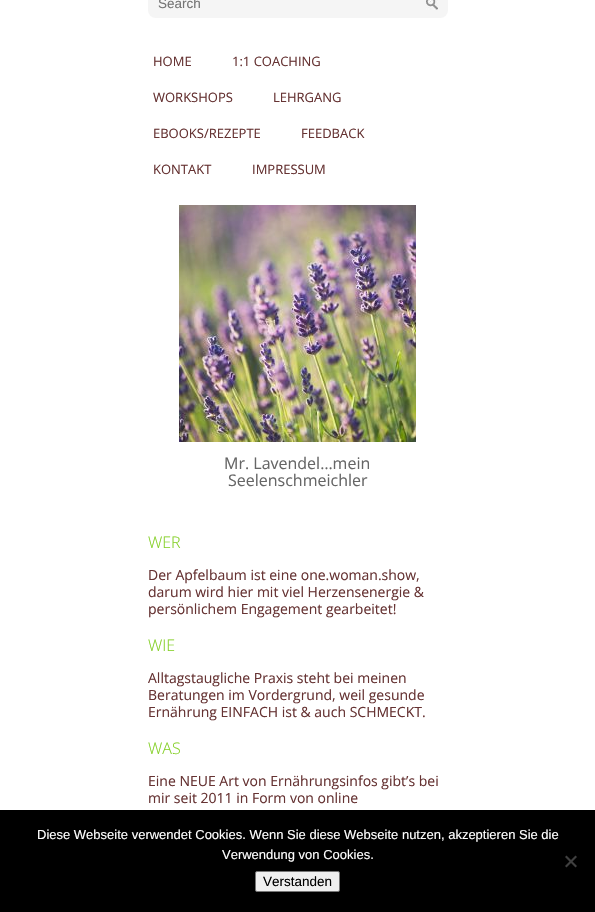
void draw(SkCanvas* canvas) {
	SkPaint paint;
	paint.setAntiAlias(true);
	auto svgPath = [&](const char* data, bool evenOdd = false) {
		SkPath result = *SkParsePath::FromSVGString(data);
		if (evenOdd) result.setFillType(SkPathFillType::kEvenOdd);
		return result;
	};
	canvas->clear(0xffffffff);
	paint.setColor(0xfff5f5f5);
	canvas->drawRoundRect(SkRect::MakeXYWH(148, -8, 300, 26), 8, 8, paint);
	SkFont f1(fontMgr->matchFamilyStyle("Liberation Sans", SkFontStyle::Normal()), 13.5);
	f1.setSubpixel(true);
	paint.setColor(0xff757575);
	canvas->drawString("Search", 158, 8, f1, paint);
	canvas->drawImageRect(SkImages::DeferredFromEncodedData(SkData::MakeFromFileName("img1.png")), SkRect::MakeXYWH(426, 0, 12, 10), SkSamplingOptions());
	SkFont f2(fontMgr->matchFamilyStyle("Open Sans", SkFontStyle::Normal()), 13);
	f2.setSubpixel(true);
	paint.setColor(0xff663333);
	canvas->drawString("HOME", 153, 66, f2, paint);
	canvas->drawString("1:1 COACHING", 232, 66, f2, paint);
	canvas->drawString("WORKSHOPS", 153, 102, f2, paint);
	canvas->drawString("LEHRGANG", 273, 102, f2, paint);
	canvas->drawString("EBOOKS/REZEPTE", 153, 138, f2, paint);
	canvas->drawString("FEEDBACK", 301, 138, f2, paint);
	canvas->drawString("KONTAKT", 153, 174, f2, paint);
	canvas->drawString("IMPRESSUM", 252, 174, f2, paint);
	canvas->drawImageRect(SkImages::DeferredFromEncodedData(SkData::MakeFromFileName("img2.png")), SkRect::MakeXYWH(179, 205, 237, 237), SkSamplingOptions());
	SkFont f3(fontMgr->matchFamilyStyle("Open Sans", SkFontStyle::Normal()), 16);
	f3.setSubpixel(true);
	paint.setColor(0xff666666);
	canvas->drawString("Mr. Lavendel…mein", 224, 469, f3, paint);
	canvas->drawString("Seelenschmeichler", 228, 486, f3, paint);
	SkFont f4(fontMgr->matchFamilyStyle("Open Sans", SkFontStyle(300, SkFontStyle::kNormal_Width, SkFontStyle::kUpright_Slant)), 16);
	f4.setSubpixel(true);
	paint.setColor(0xff83cf24);
	canvas->drawString("WER", 148, 548, f4, paint);
	SkFont f5(fontMgr->matchFamilyStyle("Open Sans", SkFontStyle::Normal()), 14);
	f5.setSubpixel(true);
	paint.setColor(0xff663333);
	canvas->drawString("Der Apfelbaum ist eine one.woman.show,", 148, 580, f5, paint);
	canvas->drawString("darum wird hier mit viel Herzensenergie &", 148, 597, f5, paint);
	canvas->drawString("persönlichem Engagement gearbeitet!", 148, 614, f5, paint);
	paint.setColor(0xff83cf24);
	canvas->drawString("WIE", 148, 651, f4, paint);
	paint.setColor(0xff663333);
	canvas->drawString("Alltagstaugliche Praxis steht bei meinen", 148, 683, f5, paint);
	canvas->drawString("Beratungen im Vordergrund, weil gesunde", 148, 700, f5, paint);
	canvas->drawString("Ernährung EINFACH ist & auch SCHMECKT.", 148, 717, f5, paint);
	paint.setColor(0xff83cf24);
	canvas->drawString("WAS", 148, 754, f4, paint);
	paint.setColor(0xff663333);
	canvas->drawString("Eine NEUE Art von Ernährungsinfos gibt’s bei", 148, 786, f5, paint);
	canvas->drawString("mir seit 2011 in Form von online", 148, 803, f5, paint);
	paint.setColor(0xff000000);
	canvas->drawRect(SkRect::MakeXYWH(0, 810, 595, 102), paint);
	SkFont f6(fontMgr->matchFamilyStyle("Liberation Sans", SkFontStyle::Normal()), 13);
	f6.setSubpixel(true);
	paint.setColor(0xffffffff);
	canvas->drawString("Diese Webseite verwendet Cookies. Wenn Sie diese Webseite nutzen, akzeptieren Sie die", 37, 839, f6, paint);
	canvas->drawString("Verwendung von Cookies.", 222, 859, f6, paint);
	paint.setColor(0xff404040);
	canvas->drawPath(svgPath("M575.5 855.5L577 857L566.5 867.5L565 866Z"), paint);
	canvas->drawPath(svgPath("M565 857L566.5 855.5L577 866L575.5 867.5Z"), paint);
	paint.setColor(0xffefefef);
	canvas->drawRoundRect(SkRect::MakeXYWH(255.5, 871.5, 84, 20), 1.5, 1.5, paint);
	paint.setStroke(true);
	paint.setStrokeWidth(1);
	paint.setColor(0xff767676);
	canvas->drawRoundRect(SkRect::MakeXYWH(255.5, 871.5, 84, 20), 1.5, 1.5, paint);
	paint.setStroke(false);
	paint.setColor(0xff000000);
	canvas->drawString("Verstanden", 263, 886, f1, paint);
}
